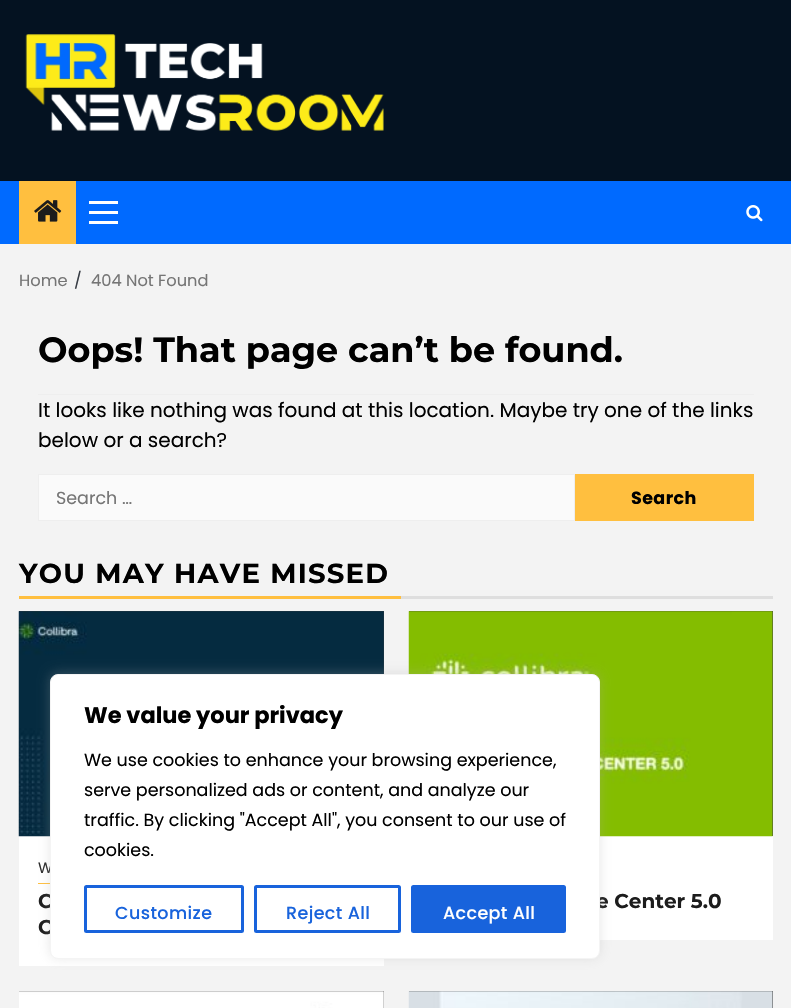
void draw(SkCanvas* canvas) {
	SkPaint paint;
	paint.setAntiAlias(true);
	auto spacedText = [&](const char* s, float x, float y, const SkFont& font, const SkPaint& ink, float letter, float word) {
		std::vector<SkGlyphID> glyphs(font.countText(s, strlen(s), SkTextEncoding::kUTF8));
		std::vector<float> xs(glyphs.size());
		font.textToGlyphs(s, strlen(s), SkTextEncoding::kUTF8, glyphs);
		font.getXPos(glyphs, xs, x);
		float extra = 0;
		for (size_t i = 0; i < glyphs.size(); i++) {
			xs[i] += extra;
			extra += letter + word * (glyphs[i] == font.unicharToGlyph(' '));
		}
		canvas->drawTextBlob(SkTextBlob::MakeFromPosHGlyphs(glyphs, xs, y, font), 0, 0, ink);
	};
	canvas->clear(0xfff3f3f3);
	paint.setColor(0xff041221);
	canvas->drawRect(SkRect::MakeXYWH(0, 0, 791, 181), paint);
	canvas->drawImageRect(SkImages::DeferredFromEncodedData(SkData::MakeFromFileName("img1.png")), SkRect::MakeXYWH(25, 34, 359, 97), SkSamplingOptions());
	paint.setColor(0xff006aff);
	canvas->drawRect(SkRect::MakeXYWH(0, 181, 791, 63), paint);
	paint.setColor(0xffffbf3f);
	canvas->drawRect(SkRect::MakeXYWH(19, 181, 57, 63), paint);
	canvas->drawImageRect(SkImages::DeferredFromEncodedData(SkData::MakeFromFileName("img2.png")), SkRect::MakeXYWH(34, 200, 28, 22), SkSamplingOptions());
	paint.setColor(0xffffffff);
	canvas->drawRect(SkRect::MakeXYWH(89, 211, 29, 3), paint);
	canvas->drawRect(SkRect::MakeXYWH(89, 201, 29, 3), paint);
	canvas->drawRect(SkRect::MakeXYWH(89, 221, 29, 3), paint);
	canvas->drawImageRect(SkImages::DeferredFromEncodedData(SkData::MakeFromFileName("img3.png")), SkRect::MakeXYWH(746, 205, 17, 17), SkSamplingOptions());
	SkFont f1(fontMgr->matchFamilyStyle("Poppins", SkFontStyle::Normal()), 16.25);
	f1.setSubpixel(true);
	paint.setColor(0xff757575);
	canvas->drawString("Home", 19, 286, f1, paint);
	paint.setColor(0xff393e46);
	canvas->drawString("/", 74, 286, f1, paint);
	paint.setColor(0xff757575);
	canvas->drawString("404 Not Found", 91, 286, f1, paint);
	paint.setColor(0xffeeeeee);
	canvas->drawRect(SkRect::MakeXYWH(38, 394, 716, 1), paint);
	SkFont f2(fontMgr->matchFamilyStyle("Montserrat", SkFontStyle::Bold()), 35);
	f2.setSubpixel(true);
	paint.setColor(0xff000000);
	canvas->drawString("Oops! That page can’t be found.", 38, 362, f2, paint);
	SkFont f3(fontMgr->matchFamilyStyle("Poppins", SkFontStyle::Normal()), 20);
	f3.setSubpixel(true);
	canvas->drawString("It looks like nothing was found at this location. Maybe try one of the links", 38, 417, f3, paint);
	canvas->drawString("below or a search?", 38, 447, f3, paint);
	paint.setColor(0xfffafafa);
	canvas->drawRect(SkRect::MakeXYWH(38.5, 474.5, 536, 46), paint);
	paint.setStroke(true);
	paint.setStrokeWidth(1);
	paint.setColor(0xffeeeeee);
	canvas->drawRect(SkRect::MakeXYWH(38.5, 474.5, 536, 46), paint);
	SkFont f4(fontMgr->matchFamilyStyle("Poppins", SkFontStyle::Normal()), 17.5);
	f4.setSubpixel(true);
	paint.setStroke(false);
	paint.setColor(0xff757575);
	canvas->drawString("Search …", 56, 504, f4, paint);
	paint.setColor(0xffffbf3f);
	canvas->drawRect(SkRect::MakeXYWH(575, 474, 179, 47), paint);
	SkFont f5(fontMgr->matchFamilyStyle("Poppins", SkFontStyle::Bold()), 17.5);
	f5.setSubpixel(true);
	paint.setColor(0xff000000);
	spacedText("Search", 631, 504, f5, paint, 0.4, 0);
	paint.setColor(0xffffbf3f);
	canvas->drawRect(SkRect::MakeXYWH(19, 596, 382, 3), paint);
	SkFont f6(fontMgr->matchFamilyStyle("Montserrat", SkFontStyle::Bold()), 27.5);
	f6.setSubpixel(true);
	paint.setColor(0xff000000);
	spacedText("YOU MAY HAVE MISSED", 19, 583, f6, paint, 1.25, 0);
	paint.setColor(0xffdedede);
	canvas->drawRect(SkRect::MakeXYWH(401, 596, 372, 3), paint);
	paint.setColor(0xffffffff);
	canvas->drawRect(SkRect::MakeXYWH(19, 836, 365, 130), paint);
	paint.setColor(0xff404040);
	canvas->drawRect(SkRect::MakeXYWH(19, 611, 365, 63), paint);
	canvas->drawImageRect(SkImages::DeferredFromEncodedData(SkData::MakeFromFileName("img4.png")), SkRect::MakeXYWH(18, 611, 366, 226), SkSamplingOptions());
	paint.setColor(0xffffbf3f);
	canvas->drawRect(SkRect::MakeXYWH(38, 883, 12, 1), paint);
	SkFont f7(fontMgr->matchFamilyStyle("Poppins", SkFontStyle::Normal()), 15);
	f7.setSubpixel(true);
	paint.setColor(0xff2b2b2b);
	canvas->drawString("W", 38, 873, f7, paint);
	SkFont f8(fontMgr->matchFamilyStyle("Montserrat", SkFontStyle::Bold()), 20);
	f8.setSubpixel(true);
	paint.setColor(0xff1c1c1c);
	canvas->drawString("C", 38, 908, f8, paint);
	canvas->drawString("O", 38, 934, f8, paint);
	paint.setColor(0xffffffff);
	canvas->drawRect(SkRect::MakeXYWH(600, 836, 173, 104), paint);
	paint.setColor(0xff404040);
	canvas->drawRect(SkRect::MakeXYWH(409, 611, 364, 225), paint);
	canvas->drawImageRect(SkImages::DeferredFromEncodedData(SkData::MakeFromFileName("img5.png")), SkRect::MakeXYWH(408, 611, 365, 226), SkSamplingOptions());
	paint.setColor(0xff1c1c1c);
	canvas->drawString("e Center 5.0", 596, 908, f8, paint);
	paint.setColor(0xff404040);
	canvas->drawRect(SkRect::MakeXYWH(19, 991, 365, 17), paint);
	canvas->drawImageRect(SkImages::DeferredFromEncodedData(SkData::MakeFromFileName("img6.png")), SkRect::MakeXYWH(19, 991, 365, 17), SkSamplingOptions());
	canvas->drawRect(SkRect::MakeXYWH(409, 991, 364, 17), paint);
	canvas->drawImageRect(SkImages::DeferredFromEncodedData(SkData::MakeFromFileName("img7.png")), SkRect::MakeXYWH(408, 991, 365, 17), SkSamplingOptions());
	paint.setColor(0x4dacabab);
	paint.setMaskFilter(SkMaskFilter::MakeBlur(kNormal_SkBlurStyle, 6));
	canvas->drawRoundRect(SkRect::MakeXYWH(50, 673, 550, 285), 8, 8, paint);
	paint.setMaskFilter(nullptr);
	paint.setColor(0xffffffff);
	canvas->drawRoundRect(SkRect::MakeXYWH(50.5, 674.5, 549, 284), 7.5, 7.5, paint);
	paint.setStroke(true);
	paint.setColor(0xfff4f4f4);
	canvas->drawRoundRect(SkRect::MakeXYWH(50.5, 674.5, 549, 284), 7.5, 7.5, paint);
	SkFont f9(fontMgr->matchFamilyStyle("Poppins", SkFontStyle::Bold()), 22.5);
	f9.setSubpixel(true);
	paint.setStroke(false);
	paint.setColor(0xff000000);
	canvas->drawString("We value your privacy", 84, 723, f9, paint);
	canvas->drawString("We use cookies to enhance your browsing experience,", 84, 766, f4, paint);
	canvas->drawString("serve personalized ads or content, and analyze our", 84, 796, f4, paint);
	canvas->drawString("traffic. By clicking \"Accept All\", you consent to our use of", 84, 826, f4, paint);
	canvas->drawString("cookies.", 84, 856, f4, paint);
	paint.setStroke(true);
	paint.setStrokeWidth(3);
	paint.setColor(0xff1863dc);
	canvas->drawRoundRect(SkRect::MakeXYWH(85.5, 886.5, 157, 45), 1, 1, paint);
	SkFont f10(fontMgr->matchFamilyStyle("Poppins", SkFontStyle(500, SkFontStyle::kNormal_Width, SkFontStyle::kUpright_Slant)), 17.5);
	f10.setSubpixel(true);
	paint.setStroke(false);
	spacedText("Customize", 115, 919, f10, paint, 0.4, 0);
	paint.setStroke(true);
	canvas->drawRoundRect(SkRect::MakeXYWH(255.5, 886.5, 144, 45), 1, 1, paint);
	paint.setStroke(false);
	spacedText("Reject All", 286, 919, f10, paint, 0.4, 0);
	canvas->drawRoundRect(SkRect::MakeXYWH(412.5, 886.5, 152, 45), 1, 1, paint);
	paint.setStroke(true);
	canvas->drawRoundRect(SkRect::MakeXYWH(412.5, 886.5, 152, 45), 1, 1, paint);
	paint.setStroke(false);
	paint.setColor(0xffffffff);
	spacedText("Accept All", 443, 919, f10, paint, 0.4, 0);
}
